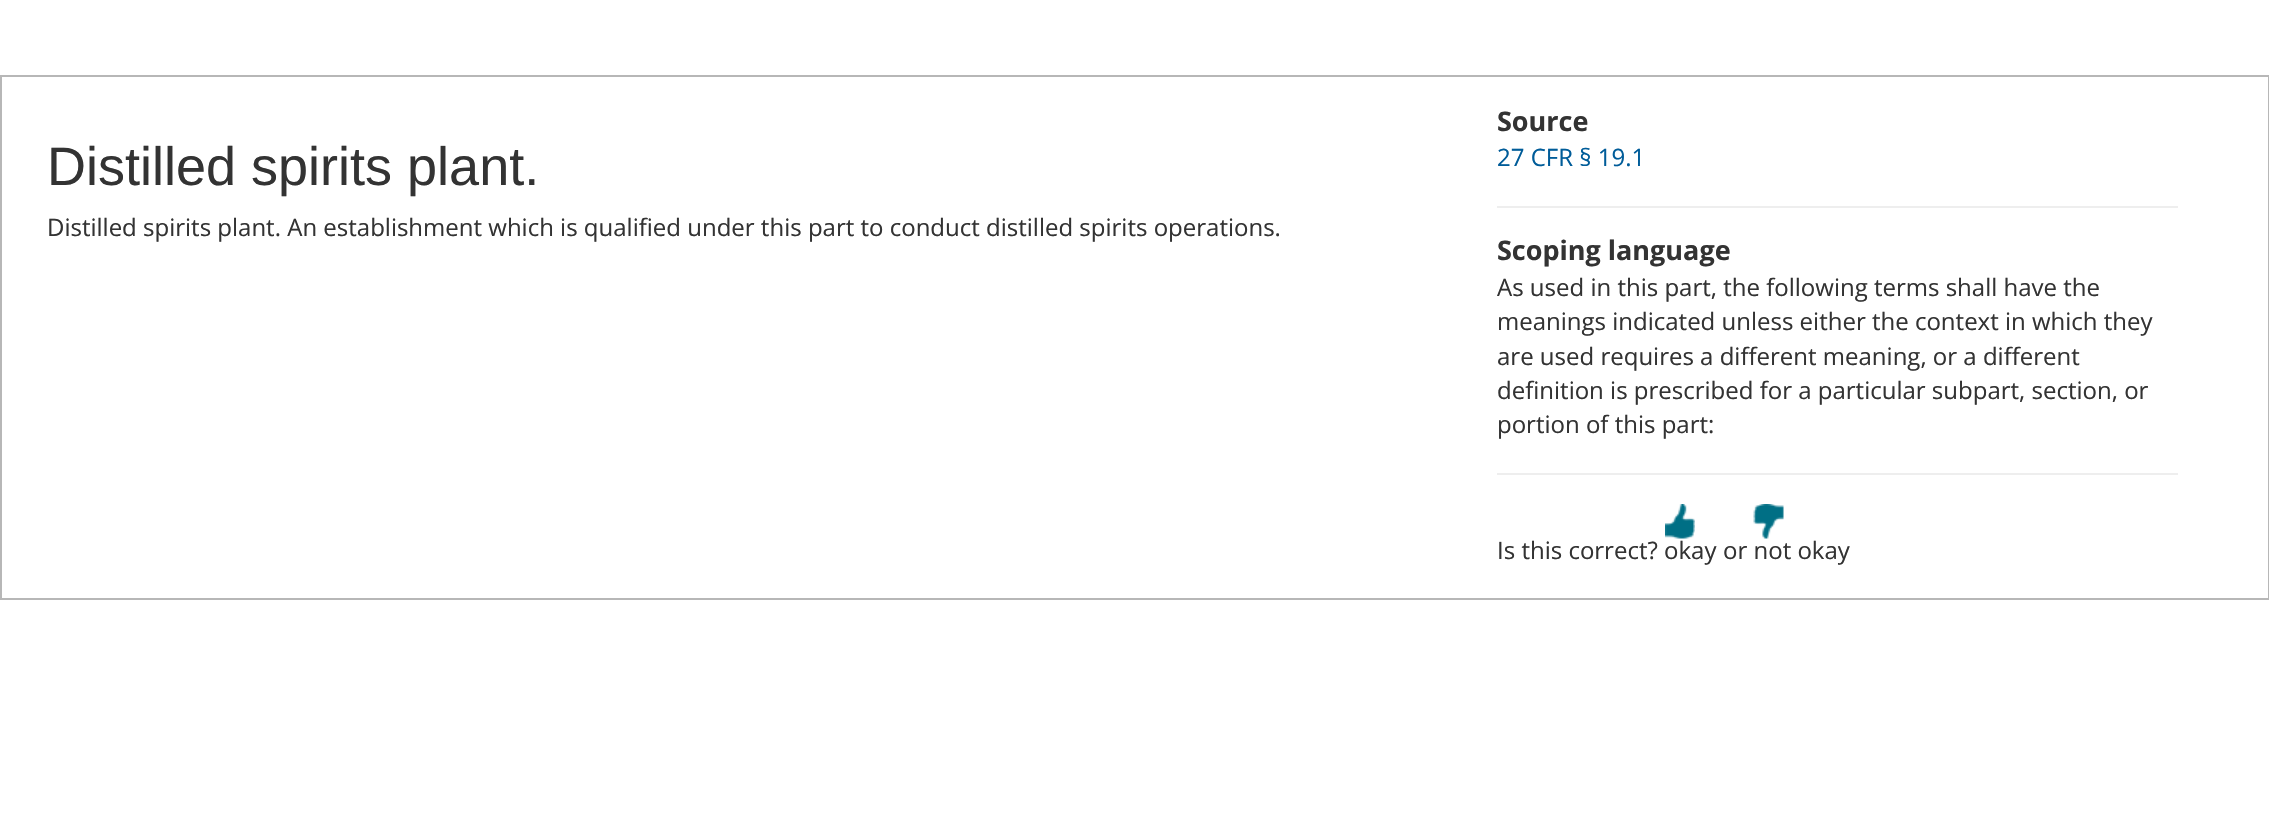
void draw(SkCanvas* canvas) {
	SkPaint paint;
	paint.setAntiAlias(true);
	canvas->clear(0xffffffff);
	paint.setStroke(true);
	paint.setStrokeWidth(2);
	paint.setColor(0xffb7b7b7);
	canvas->drawRect(SkRect::MakeXYWH(1, 76, 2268, 523), paint);
	SkFont f1(fontMgr->matchFamilyStyle("Liberation Sans", SkFontStyle::Normal()), 54);
	f1.setSubpixel(true);
	paint.setStroke(false);
	paint.setColor(0xff333333);
	canvas->drawString("Distilled spirits plant.", 47, 185, f1, paint);
	SkFont f2(fontMgr->matchFamilyStyle("Open Sans", SkFontStyle::Normal()), 24);
	f2.setSubpixel(true);
	canvas->drawString("Distilled spirits plant. An establishment which is qualified under this part to conduct distilled spirits operations.", 47, 236, f2, paint);
	SkFont f3(fontMgr->matchFamilyStyle("Open Sans", SkFontStyle::Bold()), 27);
	f3.setSubpixel(true);
	canvas->drawString("Source", 1497, 131, f3, paint);
	paint.setColor(0xff005c99);
	canvas->drawString("27 CFR § 19.1", 1497, 166, f2, paint);
	paint.setColor(0xffeeeeee);
	canvas->drawRect(SkRect::MakeXYWH(1497, 206, 681, 2), paint);
	paint.setColor(0xff333333);
	canvas->drawString("Scoping language", 1497, 260, f3, paint);
	canvas->drawString("As used in this part, the following terms shall have the", 1497, 296, f2, paint);
	canvas->drawString("meanings indicated unless either the context in which they", 1497, 330, f2, paint);
	canvas->drawString("are used requires a different meaning, or a different", 1497, 365, f2, paint);
	canvas->drawString("definition is prescribed for a particular subpart, section, or", 1497, 399, f2, paint);
	canvas->drawString("portion of this part:", 1497, 433, f2, paint);
	paint.setColor(0xffeeeeee);
	canvas->drawRect(SkRect::MakeXYWH(1497, 473, 681, 2), paint);
	canvas->drawImageRect(SkImages::DeferredFromEncodedData(SkData::MakeFromFileName("img1.png")), SkRect::MakeXYWH(1665, 504, 30, 35), SkSamplingOptions());
	canvas->drawImageRect(SkImages::DeferredFromEncodedData(SkData::MakeFromFileName("img2.png")), SkRect::MakeXYWH(1753, 504, 31, 35), SkSamplingOptions());
	paint.setColor(0xff333333);
	canvas->drawString("Is this correct? okay", 1497, 559, f2, paint);
	canvas->drawString("or not okay", 1723, 559, f2, paint);
}
